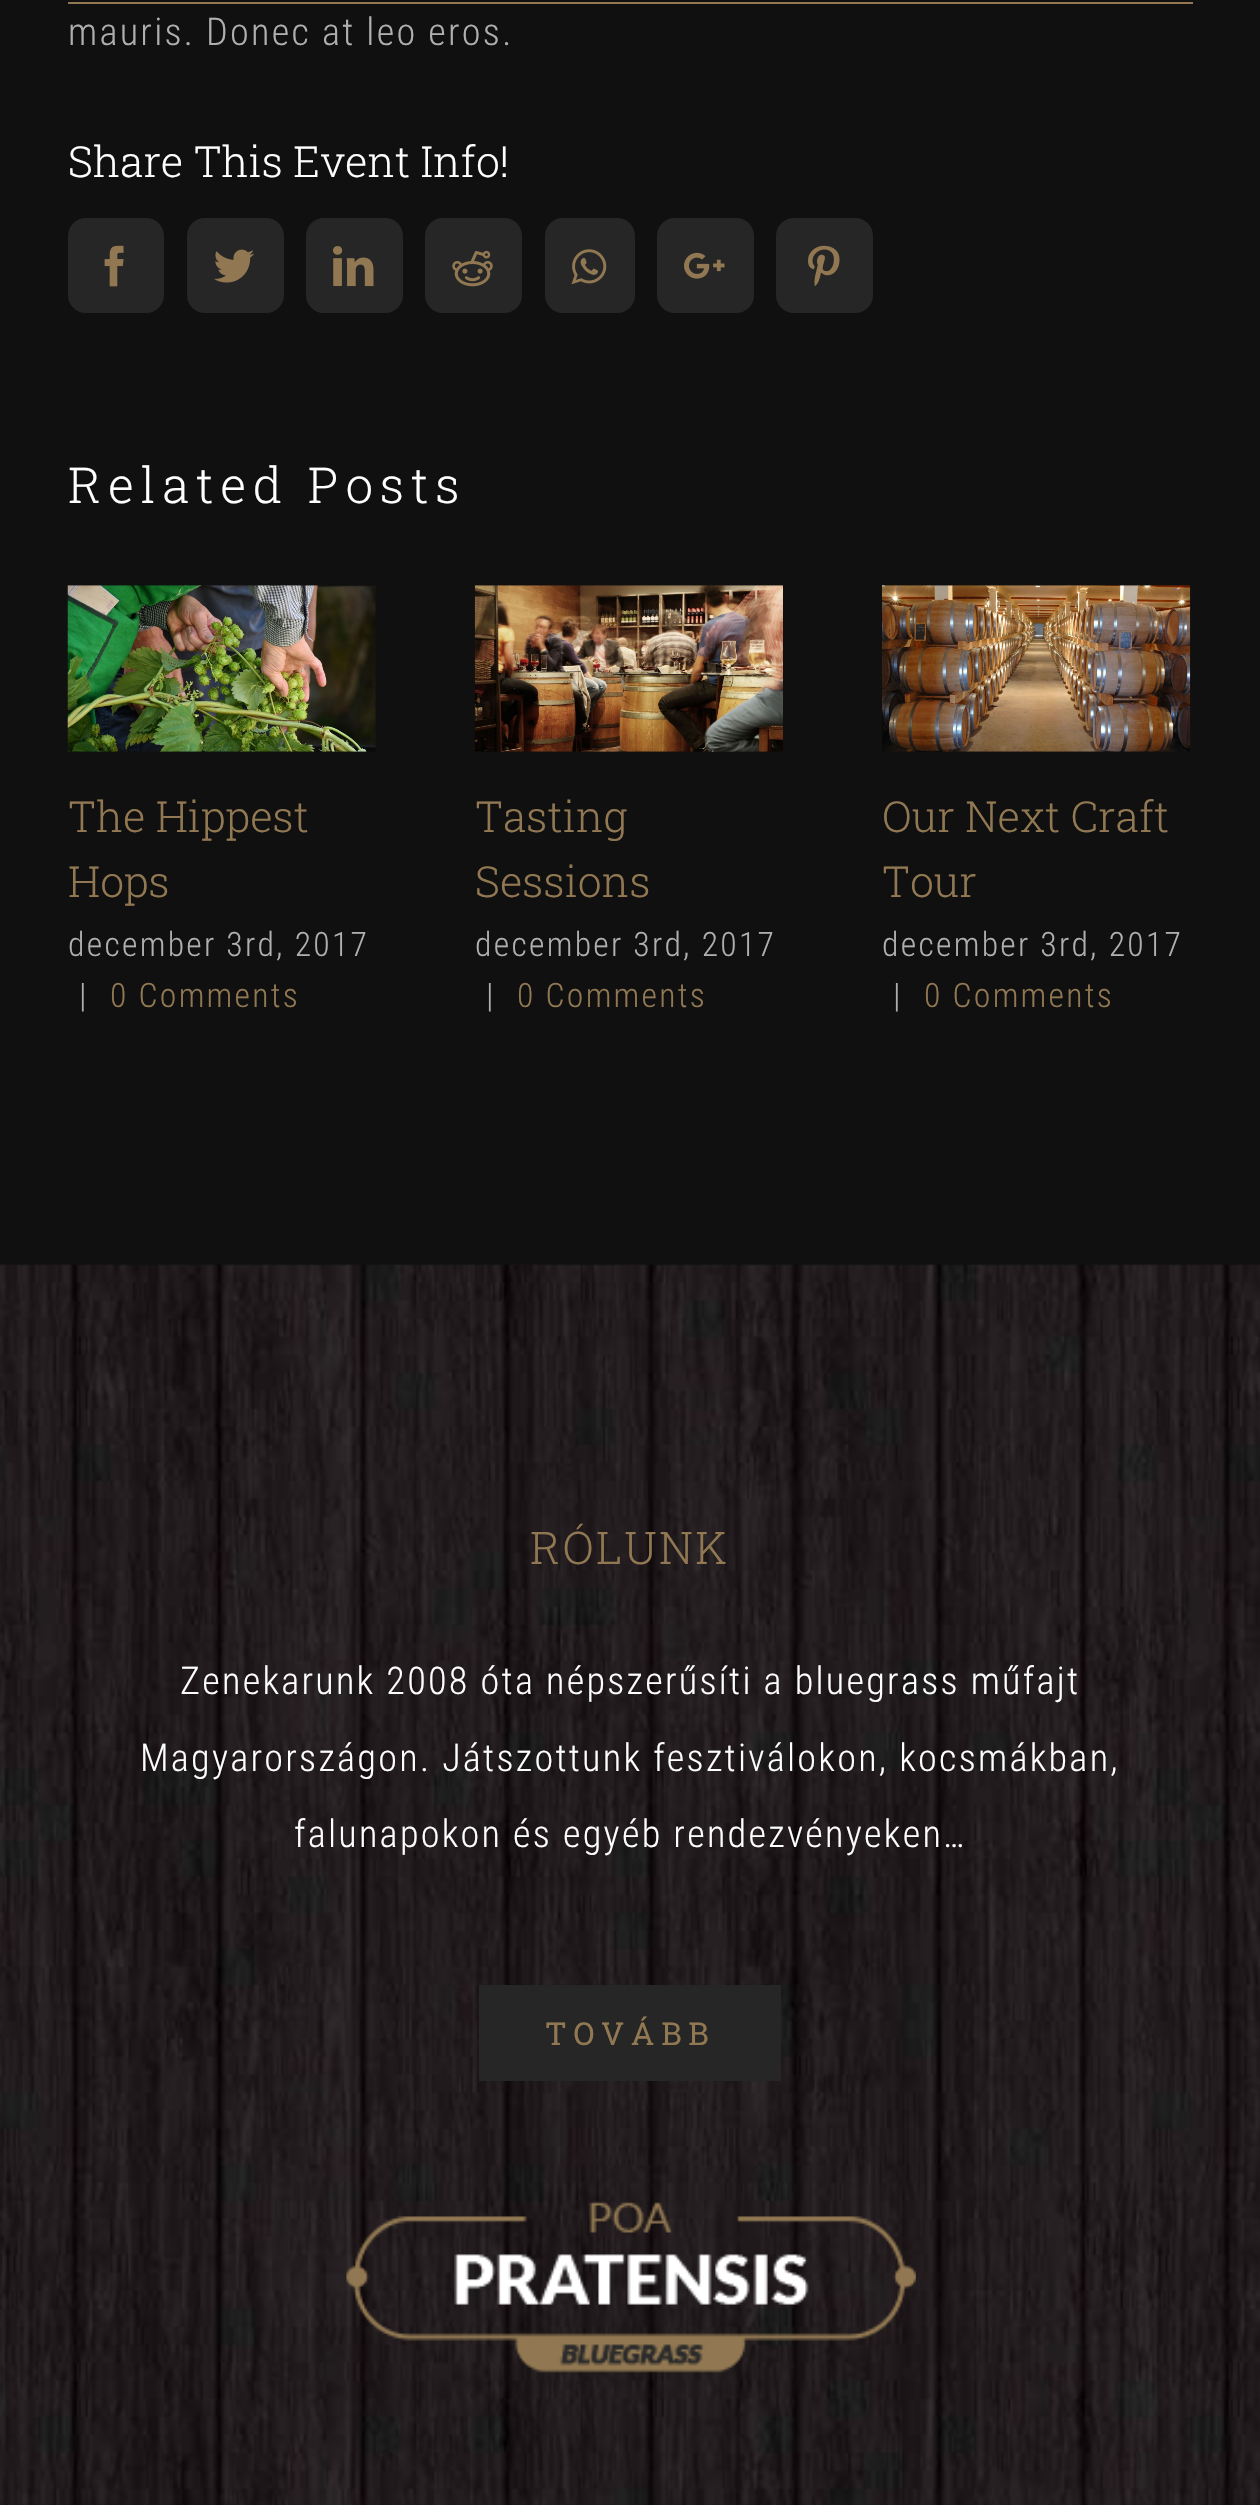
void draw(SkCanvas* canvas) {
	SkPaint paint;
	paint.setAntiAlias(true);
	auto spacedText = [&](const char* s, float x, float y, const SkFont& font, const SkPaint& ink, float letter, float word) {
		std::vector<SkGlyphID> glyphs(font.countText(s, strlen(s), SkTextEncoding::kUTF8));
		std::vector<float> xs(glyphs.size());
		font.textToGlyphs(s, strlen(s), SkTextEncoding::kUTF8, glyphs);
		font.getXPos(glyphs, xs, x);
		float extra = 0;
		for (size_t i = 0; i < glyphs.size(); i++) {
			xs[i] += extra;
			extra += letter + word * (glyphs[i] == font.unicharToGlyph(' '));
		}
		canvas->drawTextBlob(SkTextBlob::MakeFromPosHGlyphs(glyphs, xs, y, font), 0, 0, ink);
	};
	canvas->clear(0xff101010);
	paint.setColor(0xff917852);
	canvas->drawRect(SkRect::MakeXYWH(68, 2, 1125, 2), paint);
	SkFont f1(fontMgr->matchFamilyStyle("Roboto Condensed", SkFontStyle(300, SkFontStyle::kNormal_Width, SkFontStyle::kUpright_Slant)), 38.25);
	f1.setSubpixel(true);
	paint.setColor(0xffafafaf);
	spacedText("mauris. Donec at leo eros.", 68, 45, f1, paint, 2.25, 0);
	SkFont f2(fontMgr->matchFamilyStyle("Roboto Slab", SkFontStyle(300, SkFontStyle::kNormal_Width, SkFontStyle::kUpright_Slant)), 42.75);
	f2.setSubpixel(true);
	paint.setColor(0xffffffff);
	canvas->drawString("Share This Event Info!", 68, 177, f2, paint);
	paint.setColor(0xff262626);
	canvas->drawRoundRect(SkRect::MakeXYWH(69, 219, 94, 93), 17, 17, paint);
	paint.setStroke(true);
	paint.setStrokeWidth(2);
	canvas->drawRoundRect(SkRect::MakeXYWH(69, 219, 94, 93), 17, 17, paint);
	canvas->drawImageRect(SkImages::DeferredFromEncodedData(SkData::MakeFromFileName("img1.png")), SkRect::MakeXYWH(104, 245, 20, 42), SkSamplingOptions());
	paint.setStroke(false);
	canvas->drawRoundRect(SkRect::MakeXYWH(188, 219, 95, 93), 17, 17, paint);
	paint.setStroke(true);
	canvas->drawRoundRect(SkRect::MakeXYWH(188, 219, 95, 93), 17, 17, paint);
	canvas->drawImageRect(SkImages::DeferredFromEncodedData(SkData::MakeFromFileName("img2.png")), SkRect::MakeXYWH(214, 249, 40, 34), SkSamplingOptions());
	paint.setStroke(false);
	canvas->drawRoundRect(SkRect::MakeXYWH(307, 219, 95, 93), 17, 17, paint);
	paint.setStroke(true);
	canvas->drawRoundRect(SkRect::MakeXYWH(307, 219, 95, 93), 17, 17, paint);
	canvas->drawImageRect(SkImages::DeferredFromEncodedData(SkData::MakeFromFileName("img3.png")), SkRect::MakeXYWH(333, 246, 41, 41), SkSamplingOptions());
	paint.setStroke(false);
	canvas->drawRoundRect(SkRect::MakeXYWH(426, 219, 95, 93), 17, 17, paint);
	paint.setStroke(true);
	canvas->drawRoundRect(SkRect::MakeXYWH(426, 219, 95, 93), 17, 17, paint);
	canvas->drawImageRect(SkImages::DeferredFromEncodedData(SkData::MakeFromFileName("img4.png")), SkRect::MakeXYWH(452, 250, 41, 37), SkSamplingOptions());
	paint.setStroke(false);
	canvas->drawRoundRect(SkRect::MakeXYWH(546, 219, 88, 93), 17, 17, paint);
	paint.setStroke(true);
	canvas->drawRoundRect(SkRect::MakeXYWH(546, 219, 88, 93), 17, 17, paint);
	canvas->drawImageRect(SkImages::DeferredFromEncodedData(SkData::MakeFromFileName("img5.png")), SkRect::MakeXYWH(571, 249, 36, 36), SkSamplingOptions());
	paint.setStroke(false);
	canvas->drawRoundRect(SkRect::MakeXYWH(658, 219, 95, 93), 17, 17, paint);
	paint.setStroke(true);
	canvas->drawRoundRect(SkRect::MakeXYWH(658, 219, 95, 93), 17, 17, paint);
	canvas->drawImageRect(SkImages::DeferredFromEncodedData(SkData::MakeFromFileName("img6.png")), SkRect::MakeXYWH(684, 252, 41, 27), SkSamplingOptions());
	paint.setStroke(false);
	canvas->drawRoundRect(SkRect::MakeXYWH(777, 219, 95, 93), 17, 17, paint);
	paint.setStroke(true);
	canvas->drawRoundRect(SkRect::MakeXYWH(777, 219, 95, 93), 17, 17, paint);
	canvas->drawImageRect(SkImages::DeferredFromEncodedData(SkData::MakeFromFileName("img7.png")), SkRect::MakeXYWH(808, 245, 32, 42), SkSamplingOptions());
	SkFont f3(fontMgr->matchFamilyStyle("Roboto Slab", SkFontStyle(300, SkFontStyle::kNormal_Width, SkFontStyle::kUpright_Slant)), 49.5);
	f3.setSubpixel(true);
	paint.setStroke(false);
	paint.setColor(0xffffffff);
	spacedText("Related Posts", 68, 503, f3, paint, 6.75, 0);
	canvas->drawImageRect(SkImages::DeferredFromEncodedData(SkData::MakeFromFileName("img8.png")), SkRect::MakeXYWH(67, 585, 309, 167), SkSamplingOptions());
	paint.setColor(0xff917852);
	canvas->drawString("The Hippest", 68, 832, f2, paint);
	canvas->drawString("Hops", 68, 897, f2, paint);
	SkFont f4(fontMgr->matchFamilyStyle("Roboto Condensed", SkFontStyle(300, SkFontStyle::kNormal_Width, SkFontStyle::kUpright_Slant)), 33.75);
	f4.setSubpixel(true);
	paint.setColor(0xffafafaf);
	spacedText("december 3rd, 2017", 68, 956, f4, paint, 2.25, 0);
	spacedText("|", 79, 1007, f4, paint, 2.25, 0);
	paint.setColor(0xff917852);
	spacedText("0 Comments", 110, 1007, f4, paint, 2.25, 0);
	canvas->drawImageRect(SkImages::DeferredFromEncodedData(SkData::MakeFromFileName("img9.png")), SkRect::MakeXYWH(474, 585, 309, 167), SkSamplingOptions());
	canvas->drawString("Tasting", 475, 832, f2, paint);
	canvas->drawString("Sessions", 475, 897, f2, paint);
	paint.setColor(0xffafafaf);
	spacedText("december 3rd, 2017", 475, 956, f4, paint, 2.25, 0);
	spacedText("|", 486, 1007, f4, paint, 2.25, 0);
	paint.setColor(0xff917852);
	spacedText("0 Comments", 517, 1007, f4, paint, 2.25, 0);
	canvas->drawImageRect(SkImages::DeferredFromEncodedData(SkData::MakeFromFileName("img10.png")), SkRect::MakeXYWH(882, 585, 309, 167), SkSamplingOptions());
	canvas->drawString("Our Next Craft", 882, 832, f2, paint);
	canvas->drawString("Tour", 882, 897, f2, paint);
	paint.setColor(0xffafafaf);
	spacedText("december 3rd, 2017", 882, 956, f4, paint, 2.25, 0);
	spacedText("|", 893, 1007, f4, paint, 2.25, 0);
	paint.setColor(0xff917852);
	spacedText("0 Comments", 924, 1007, f4, paint, 2.25, 0);
	canvas->drawImageRect(SkImages::DeferredFromEncodedData(SkData::MakeFromFileName("img11.png")), SkRect::MakeXYWH(0, 1264, 1260, 1241), SkSamplingOptions());
	SkFont f5(fontMgr->matchFamilyStyle("Roboto Slab", SkFontStyle(300, SkFontStyle::kNormal_Width, SkFontStyle::kUpright_Slant)), 45);
	f5.setSubpixel(true);
	spacedText("RÓLUNK", 530, 1564, f5, paint, 2.25, 0);
	paint.setColor(0xffffffff);
	spacedText("Zenekarunk 2008 óta népszerűsíti a bluegrass műfajt", 180, 1694, f1, paint, 2.25, 0);
	spacedText("Magyarországon. Játszottunk fesztiválokon, kocsmákban,", 140, 1771, f1, paint, 2.25, 0);
	spacedText("falunapokon és egyéb rendezvényeken…", 294, 1847, f1, paint, 2.25, 0);
	paint.setColor(0xff262626);
	canvas->drawRect(SkRect::MakeXYWH(479, 1985, 302, 96), paint);
	SkFont f6(fontMgr->matchFamilyStyle("Roboto Slab", SkFontStyle::Normal()), 31.5);
	f6.setSubpixel(true);
	paint.setColor(0xff917852);
	spacedText("TOVÁBB", 545, 2045, f6, paint, 6.75, 0);
	canvas->drawImageRect(SkImages::DeferredFromEncodedData(SkData::MakeFromFileName("img12.png")), SkRect::MakeXYWH(346, 2202, 570, 171), SkSamplingOptions());
}
